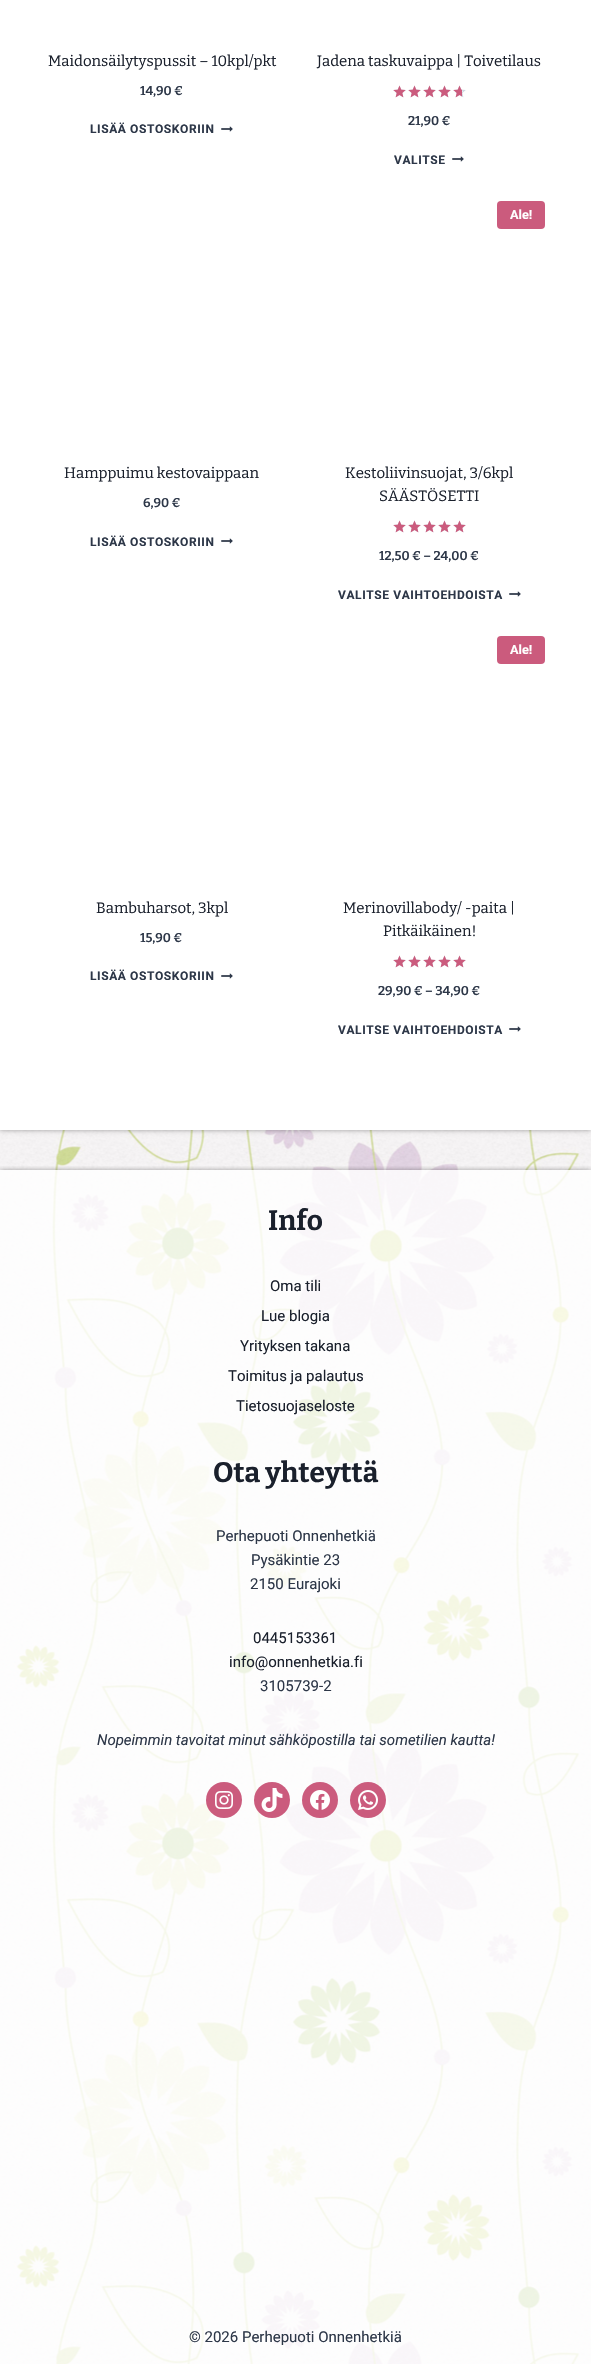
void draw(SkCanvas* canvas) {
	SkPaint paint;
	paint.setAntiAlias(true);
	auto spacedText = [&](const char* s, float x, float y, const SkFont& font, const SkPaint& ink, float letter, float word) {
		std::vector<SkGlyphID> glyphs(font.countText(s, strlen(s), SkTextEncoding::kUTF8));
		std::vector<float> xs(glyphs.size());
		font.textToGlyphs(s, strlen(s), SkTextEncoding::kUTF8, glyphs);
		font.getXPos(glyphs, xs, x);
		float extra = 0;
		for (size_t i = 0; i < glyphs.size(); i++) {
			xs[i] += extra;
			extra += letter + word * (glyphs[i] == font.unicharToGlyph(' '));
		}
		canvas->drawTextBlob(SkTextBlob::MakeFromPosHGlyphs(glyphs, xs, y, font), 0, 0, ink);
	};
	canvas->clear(0xffffffff);
	canvas->drawImageRect(SkImages::DeferredFromEncodedData(SkData::MakeFromFileName("img1.png")), SkRect::MakeXYWH(0, 1130, 591, 1234), SkSamplingOptions());
	paint.setColor(0x5c000000);
	paint.setMaskFilter(SkMaskFilter::MakeBlur(kNormal_SkBlurStyle, 2.5));
	canvas->drawRect(SkRect::MakeXYWH(0, -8, 591, 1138), paint);
	paint.setMaskFilter(nullptr);
	paint.setColor(0xffffffff);
	canvas->drawRect(SkRect::MakeXYWH(0, 0, 591, 1130), paint);
	SkFont f1(fontMgr->matchFamilyStyle("Bitter", SkFontStyle::Normal()), 15);
	f1.setSubpixel(true);
	paint.setColor(0xff1a202c);
	canvas->drawString("Maidonsäilytyspussit – 10kpl/pkt", 48, 66, f1, paint);
	SkFont f2(fontMgr->matchFamilyStyle("Bitter", SkFontStyle(100, SkFontStyle::kNormal_Width, SkFontStyle::kUpright_Slant)), 12.75);
	f2.setSubpixel(true);
	paint.setColor(0xff2d3748);
	canvas->drawString("14,90 €", 140, 95, f2, paint);
	SkFont f3(fontMgr->matchFamilyStyle("Roboto", SkFontStyle::Bold()), 12);
	f3.setSubpixel(true);
	spacedText("LISÄÄ OSTOSKORIIN", 90, 133, f3, paint, 0.6, 0);
	canvas->drawImageRect(SkImages::DeferredFromEncodedData(SkData::MakeFromFileName("img2.png")), SkRect::MakeXYWH(221, 126, 12, 6), SkSamplingOptions());
	paint.setColor(0xff1a202c);
	canvas->drawString("Jadena taskuvaippa | Toivetilaus", 317, 66, f1, paint);
	canvas->drawImageRect(SkImages::DeferredFromEncodedData(SkData::MakeFromFileName("img3.png")), SkRect::MakeXYWH(393, 85, 73, 13), SkSamplingOptions());
	canvas->drawImageRect(SkImages::DeferredFromEncodedData(SkData::MakeFromFileName("img4.png")), SkRect::MakeXYWH(393, 85, 69, 13), SkSamplingOptions());
	paint.setColor(0xff2d3748);
	canvas->drawString("21,90 €", 408, 125, f2, paint);
	spacedText("VALITSE", 394, 164, f3, paint, 0.6, 0);
	canvas->drawImageRect(SkImages::DeferredFromEncodedData(SkData::MakeFromFileName("img2.png")), SkRect::MakeXYWH(452, 156, 12, 6), SkSamplingOptions());
	paint.setColor(0xff1a202c);
	canvas->drawString("Hamppuimu kestovaippaan", 64, 478, f1, paint);
	paint.setColor(0xff2d3748);
	canvas->drawString("6,90 €", 143, 507, f2, paint);
	spacedText("LISÄÄ OSTOSKORIIN", 90, 546, f3, paint, 0.6, 0);
	canvas->drawImageRect(SkImages::DeferredFromEncodedData(SkData::MakeFromFileName("img2.png")), SkRect::MakeXYWH(221, 538, 12, 6), SkSamplingOptions());
	paint.setColor(0xffcb5b7d);
	canvas->drawRoundRect(SkRect::MakeXYWH(497, 201, 48, 28), 4, 4, paint);
	SkFont f4(fontMgr->matchFamilyStyle("Roboto", SkFontStyle::Bold()), 12.75);
	f4.setSubpixel(true);
	paint.setColor(0xffffffff);
	canvas->drawString("Ale!", 510, 219, f4, paint);
	paint.setColor(0xff1a202c);
	canvas->drawString("Kestoliivinsuojat, 3/6kpl", 345, 478, f1, paint);
	canvas->drawString("SÄÄSTÖSETTI", 379, 501, f1, paint);
	canvas->drawImageRect(SkImages::DeferredFromEncodedData(SkData::MakeFromFileName("img3.png")), SkRect::MakeXYWH(393, 520, 73, 13), SkSamplingOptions());
	canvas->drawImageRect(SkImages::DeferredFromEncodedData(SkData::MakeFromFileName("img5.png")), SkRect::MakeXYWH(393, 520, 73, 13), SkSamplingOptions());
	paint.setColor(0xff2d3748);
	canvas->drawString("12,50 € – 24,00 €", 379, 560, f2, paint);
	spacedText("VALITSE VAIHTOEHDOISTA", 338, 599, f3, paint, 0.6, 0);
	canvas->drawImageRect(SkImages::DeferredFromEncodedData(SkData::MakeFromFileName("img2.png")), SkRect::MakeXYWH(509, 591, 12, 6), SkSamplingOptions());
	paint.setColor(0xff1a202c);
	canvas->drawString("Bambuharsot, 3kpl", 96, 913, f1, paint);
	paint.setColor(0xff2d3748);
	canvas->drawString("15,90 €", 140, 942, f2, paint);
	spacedText("LISÄÄ OSTOSKORIIN", 90, 980, f3, paint, 0.6, 0);
	canvas->drawImageRect(SkImages::DeferredFromEncodedData(SkData::MakeFromFileName("img2.png")), SkRect::MakeXYWH(221, 973, 12, 6), SkSamplingOptions());
	paint.setColor(0xffcb5b7d);
	canvas->drawRoundRect(SkRect::MakeXYWH(497, 636, 48, 28), 4, 4, paint);
	paint.setColor(0xffffffff);
	canvas->drawString("Ale!", 510, 654, f4, paint);
	paint.setColor(0xff1a202c);
	canvas->drawString("Merinovillabody/ -paita |", 343, 913, f1, paint);
	canvas->drawString("Pitkäikäinen!", 383, 936, f1, paint);
	canvas->drawImageRect(SkImages::DeferredFromEncodedData(SkData::MakeFromFileName("img3.png")), SkRect::MakeXYWH(393, 955, 73, 13), SkSamplingOptions());
	canvas->drawImageRect(SkImages::DeferredFromEncodedData(SkData::MakeFromFileName("img5.png")), SkRect::MakeXYWH(393, 955, 73, 13), SkSamplingOptions());
	paint.setColor(0xff2d3748);
	canvas->drawString("29,90 € – 34,90 €", 378, 995, f2, paint);
	spacedText("VALITSE VAIHTOEHDOISTA", 338, 1034, f3, paint, 0.6, 0);
	canvas->drawImageRect(SkImages::DeferredFromEncodedData(SkData::MakeFromFileName("img2.png")), SkRect::MakeXYWH(509, 1026, 12, 6), SkSamplingOptions());
	paint.setColor(0xccffffff);
	canvas->drawRect(SkRect::MakeXYWH(0, 1170, 591, 1194), paint);
	canvas->save();
	canvas->clipRect(SkRect::MakeXYWH(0, 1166, 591, 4));
	paint.setColor(0x5c000000);
	paint.setMaskFilter(SkMaskFilter::MakeBlur(kNormal_SkBlurStyle, 2.5));
	canvas->drawRect(SkRect::MakeXYWH(0, 1170, 591, 1194), paint);
	paint.setMaskFilter(nullptr);
	canvas->restore();
	SkFont f5(fontMgr->matchFamilyStyle("Bitter", SkFontStyle::Bold()), 28);
	f5.setSubpixel(true);
	paint.setColor(0xff1a202c);
	canvas->drawString("Info", 268, 1230, f5, paint);
	SkFont f6(fontMgr->matchFamilyStyle("Roboto", SkFontStyle::Normal()), 15);
	f6.setSubpixel(true);
	canvas->drawString("Oma tili", 270, 1291, f6, paint);
	canvas->drawString("Lue blogia", 261, 1321, f6, paint);
	canvas->drawString("Yrityksen takana", 240, 1351, f6, paint);
	canvas->drawString("Toimitus ja palautus", 228, 1381, f6, paint);
	canvas->drawString("Tietosuojaseloste", 236, 1411, f6, paint);
	canvas->drawString("Ota yhteyttä", 213, 1482, f5, paint);
	paint.setColor(0xff2d3748);
	canvas->drawString("Perhepuoti Onnenhetkiä", 216, 1541, f6, paint);
	canvas->drawString("Pysäkintie 23", 251, 1565, f6, paint);
	canvas->drawString("2150 Eurajoki", 250, 1589, f6, paint);
	paint.setColor(0xff1a202c);
	canvas->drawString("0445153361", 253, 1643, f6, paint);
	canvas->drawString("info@onnenhetkia.fi", 229, 1667, f6, paint);
	paint.setColor(0xff2d3748);
	canvas->drawString("3105739-2", 260, 1691, f6, paint);
	SkFont f7(fontMgr->matchFamilyStyle("Roboto", SkFontStyle::Italic()), 15);
	f7.setSubpixel(true);
	canvas->drawString("Nopeimmin tavoitat minut sähköpostilla tai sometilien kautta!", 97, 1745, f7, paint);
	paint.setColor(0xffcb5b7d);
	canvas->drawCircle(224, 1800, 18, paint);
	canvas->drawImageRect(SkImages::DeferredFromEncodedData(SkData::MakeFromFileName("img6.png")), SkRect::MakeXYWH(215, 1791, 18, 18), SkSamplingOptions());
	canvas->drawCircle(272, 1800, 18, paint);
	canvas->drawImageRect(SkImages::DeferredFromEncodedData(SkData::MakeFromFileName("img7.png")), SkRect::MakeXYWH(261, 1788, 22, 24), SkSamplingOptions());
	canvas->drawCircle(320, 1800, 18, paint);
	canvas->drawImageRect(SkImages::DeferredFromEncodedData(SkData::MakeFromFileName("img8.png")), SkRect::MakeXYWH(310, 1790, 20, 20), SkSamplingOptions());
	canvas->drawCircle(368, 1800, 18, paint);
	canvas->drawImageRect(SkImages::DeferredFromEncodedData(SkData::MakeFromFileName("img9.png")), SkRect::MakeXYWH(358, 1790, 20, 20), SkSamplingOptions());
	paint.setColor(0xff2d3748);
	canvas->drawString("© 2026 Perhepuoti Onnenhetkiä", 189, 2342, f6, paint);
}
